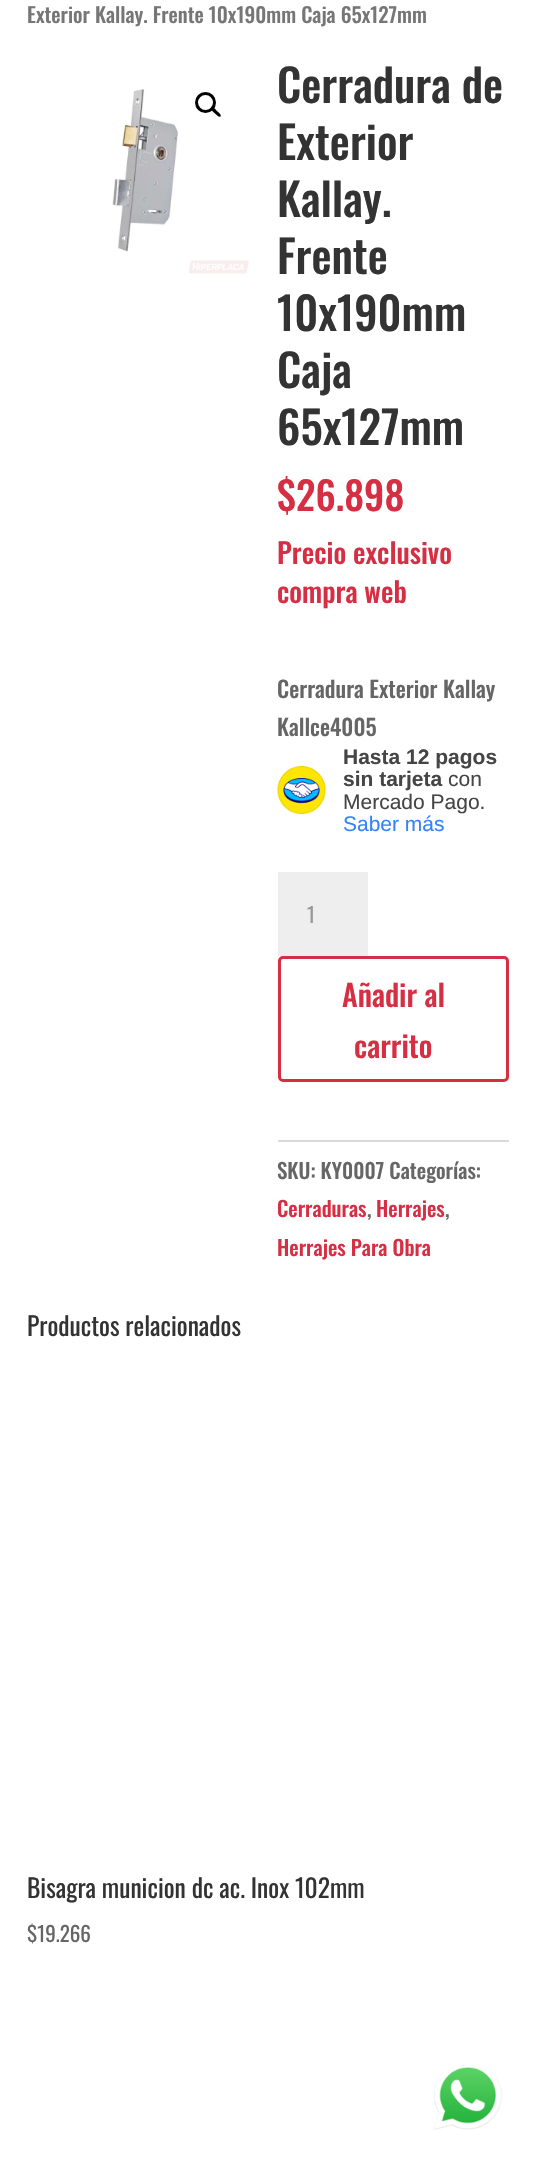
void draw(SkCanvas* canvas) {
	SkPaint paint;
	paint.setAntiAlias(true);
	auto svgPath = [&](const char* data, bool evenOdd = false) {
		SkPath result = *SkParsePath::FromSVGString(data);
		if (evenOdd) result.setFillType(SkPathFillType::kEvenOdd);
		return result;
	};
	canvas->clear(0xffffffff);
	SkFont f1(fontMgr->matchFamilyStyle("Oswald", SkFontStyle(500, SkFontStyle::kNormal_Width, SkFontStyle::kUpright_Slant)), 20.75);
	f1.setSubpixel(true);
	paint.setColor(0xff767676);
	canvas->drawString("Exterior Kallay. Frente 10x190mm Caja 65x127mm", 27, 23, f1, paint);
	canvas->drawImageRect(SkImages::DeferredFromEncodedData(SkData::MakeFromFileName("img1.png")), SkRect::MakeXYWH(112, 89, 137, 185), SkSamplingOptions());
	paint.setStroke(true);
	paint.setStrokeWidth(3);
	paint.setColor(0xff000000);
	canvas->drawCircle(205.5, 102.5, 9, paint);
	paint.setStroke(false);
	canvas->drawPath(svgPath("M212 108C213.5 106 216 110 217 111C218 112 222 114.5 220.5 116.5C218.5 118 216 114 215 113.5C214 112.5 210 109.5 212 108Z"), paint);
	SkFont f2(fontMgr->matchFamilyStyle("Oswald", SkFontStyle(500, SkFontStyle::kNormal_Width, SkFontStyle::kUpright_Slant)), 45);
	f2.setSubpixel(true);
	paint.setColor(0xff333333);
	canvas->drawString("Cerradura de", 277, 103, f2, paint);
	canvas->drawString("Exterior", 277, 160, f2, paint);
	canvas->drawString("Kallay.", 277, 217, f2, paint);
	canvas->drawString("Frente", 277, 274, f2, paint);
	canvas->drawString("10x190mm", 277, 331, f2, paint);
	canvas->drawString("Caja", 277, 388, f2, paint);
	canvas->drawString("65x127mm", 277, 445, f2, paint);
	SkFont f3(fontMgr->matchFamilyStyle("Oswald", SkFontStyle(500, SkFontStyle::kNormal_Width, SkFontStyle::kUpright_Slant)), 39);
	f3.setSubpixel(true);
	paint.setColor(0xffd62e43);
	canvas->drawString("$26.898", 277, 511, f3, paint);
	SkFont f4(fontMgr->matchFamilyStyle("Oswald", SkFontStyle(500, SkFontStyle::kNormal_Width, SkFontStyle::kUpright_Slant)), 28);
	f4.setSubpixel(true);
	canvas->drawString("Precio exclusivo", 277, 564, f4, paint);
	canvas->drawString("compra web", 277, 603, f4, paint);
	SkFont f5(fontMgr->matchFamilyStyle("Oswald", SkFontStyle(500, SkFontStyle::kNormal_Width, SkFontStyle::kUpright_Slant)), 22.5);
	f5.setSubpixel(true);
	paint.setColor(0xff666666);
	canvas->drawString("Cerradura Exterior Kallay", 277, 698, f5, paint);
	canvas->drawString("Kallce4005", 277, 736, f5, paint);
	canvas->drawImageRect(SkImages::DeferredFromEncodedData(SkData::MakeFromFileName("img2.png")), SkRect::MakeXYWH(277, 766, 49, 48), SkSamplingOptions());
	SkFont f6(fontMgr->matchFamilyStyle("Liberation Sans", SkFontStyle::Bold()), 21);
	f6.setSubpixel(true);
	paint.setColor(0xff464545);
	canvas->drawString("Hasta 12 pagos", 343, 764, f6, paint);
	canvas->drawString("sin tarjeta", 343, 786, f6, paint);
	SkFont f7(fontMgr->matchFamilyStyle("Liberation Sans", SkFontStyle::Normal()), 21);
	f7.setSubpixel(true);
	canvas->drawString("con", 448, 786, f7, paint);
	canvas->drawString("Mercado Pago.", 343, 809, f7, paint);
	paint.setColor(0xff3483fa);
	canvas->drawString("Saber más", 343, 831, f7, paint);
	paint.setColor(0xffeeeeee);
	canvas->drawRect(SkRect::MakeXYWH(278, 872, 90, 84), paint);
	SkFont f8(fontMgr->matchFamilyStyle("Oswald", SkFontStyle::Normal()), 21);
	f8.setSubpixel(true);
	paint.setColor(0xff999999);
	canvas->drawString("1", 307, 923, f8, paint);
	paint.setStroke(true);
	paint.setColor(0xffd62e43);
	canvas->drawRoundRect(SkRect::MakeXYWH(279.5, 957.5, 228, 123), 3.5, 3.5, paint);
	SkFont f9(fontMgr->matchFamilyStyle("Oswald", SkFontStyle(500, SkFontStyle::kNormal_Width, SkFontStyle::kUpright_Slant)), 30);
	f9.setSubpixel(true);
	paint.setStroke(false);
	canvas->drawString("Añadir al", 342, 1007, f9, paint);
	canvas->drawString("carrito", 354, 1058, f9, paint);
	paint.setColor(0xffdadada);
	canvas->drawRect(SkRect::MakeXYWH(278, 1140, 231, 2), paint);
	SkFont f10(fontMgr->matchFamilyStyle("Oswald", SkFontStyle(500, SkFontStyle::kNormal_Width, SkFontStyle::kUpright_Slant)), 21);
	f10.setSubpixel(true);
	paint.setColor(0xff666666);
	canvas->drawString("SKU: KY0007 Categorías:", 277, 1179, f10, paint);
	paint.setColor(0xffd62e43);
	canvas->drawString("Cerraduras", 277, 1217, f10, paint);
	paint.setColor(0xff666666);
	canvas->drawString(",", 367, 1217, f10, paint);
	paint.setColor(0xffd62e43);
	canvas->drawString("Herrajes", 376, 1217, f10, paint);
	paint.setColor(0xff666666);
	canvas->drawString(",", 445, 1217, f10, paint);
	paint.setColor(0xffd62e43);
	canvas->drawString("Herrajes Para Obra", 277, 1256, f10, paint);
	SkFont f11(fontMgr->matchFamilyStyle("Oswald", SkFontStyle::Normal()), 25.5);
	f11.setSubpixel(true);
	paint.setColor(0xff333333);
	canvas->drawString("Productos relacionados", 27, 1336, f11, paint);
	canvas->drawString("Bisagra municion dc ac. Inox 102mm", 27, 1898, f11, paint);
	paint.setColor(0xff666666);
	canvas->drawString("$19.266", 27, 1942, f8, paint);
	canvas->drawImageRect(SkImages::DeferredFromEncodedData(SkData::MakeFromFileName("img3.png")), SkRect::MakeXYWH(433, 2067, 70, 63), SkSamplingOptions());
}
